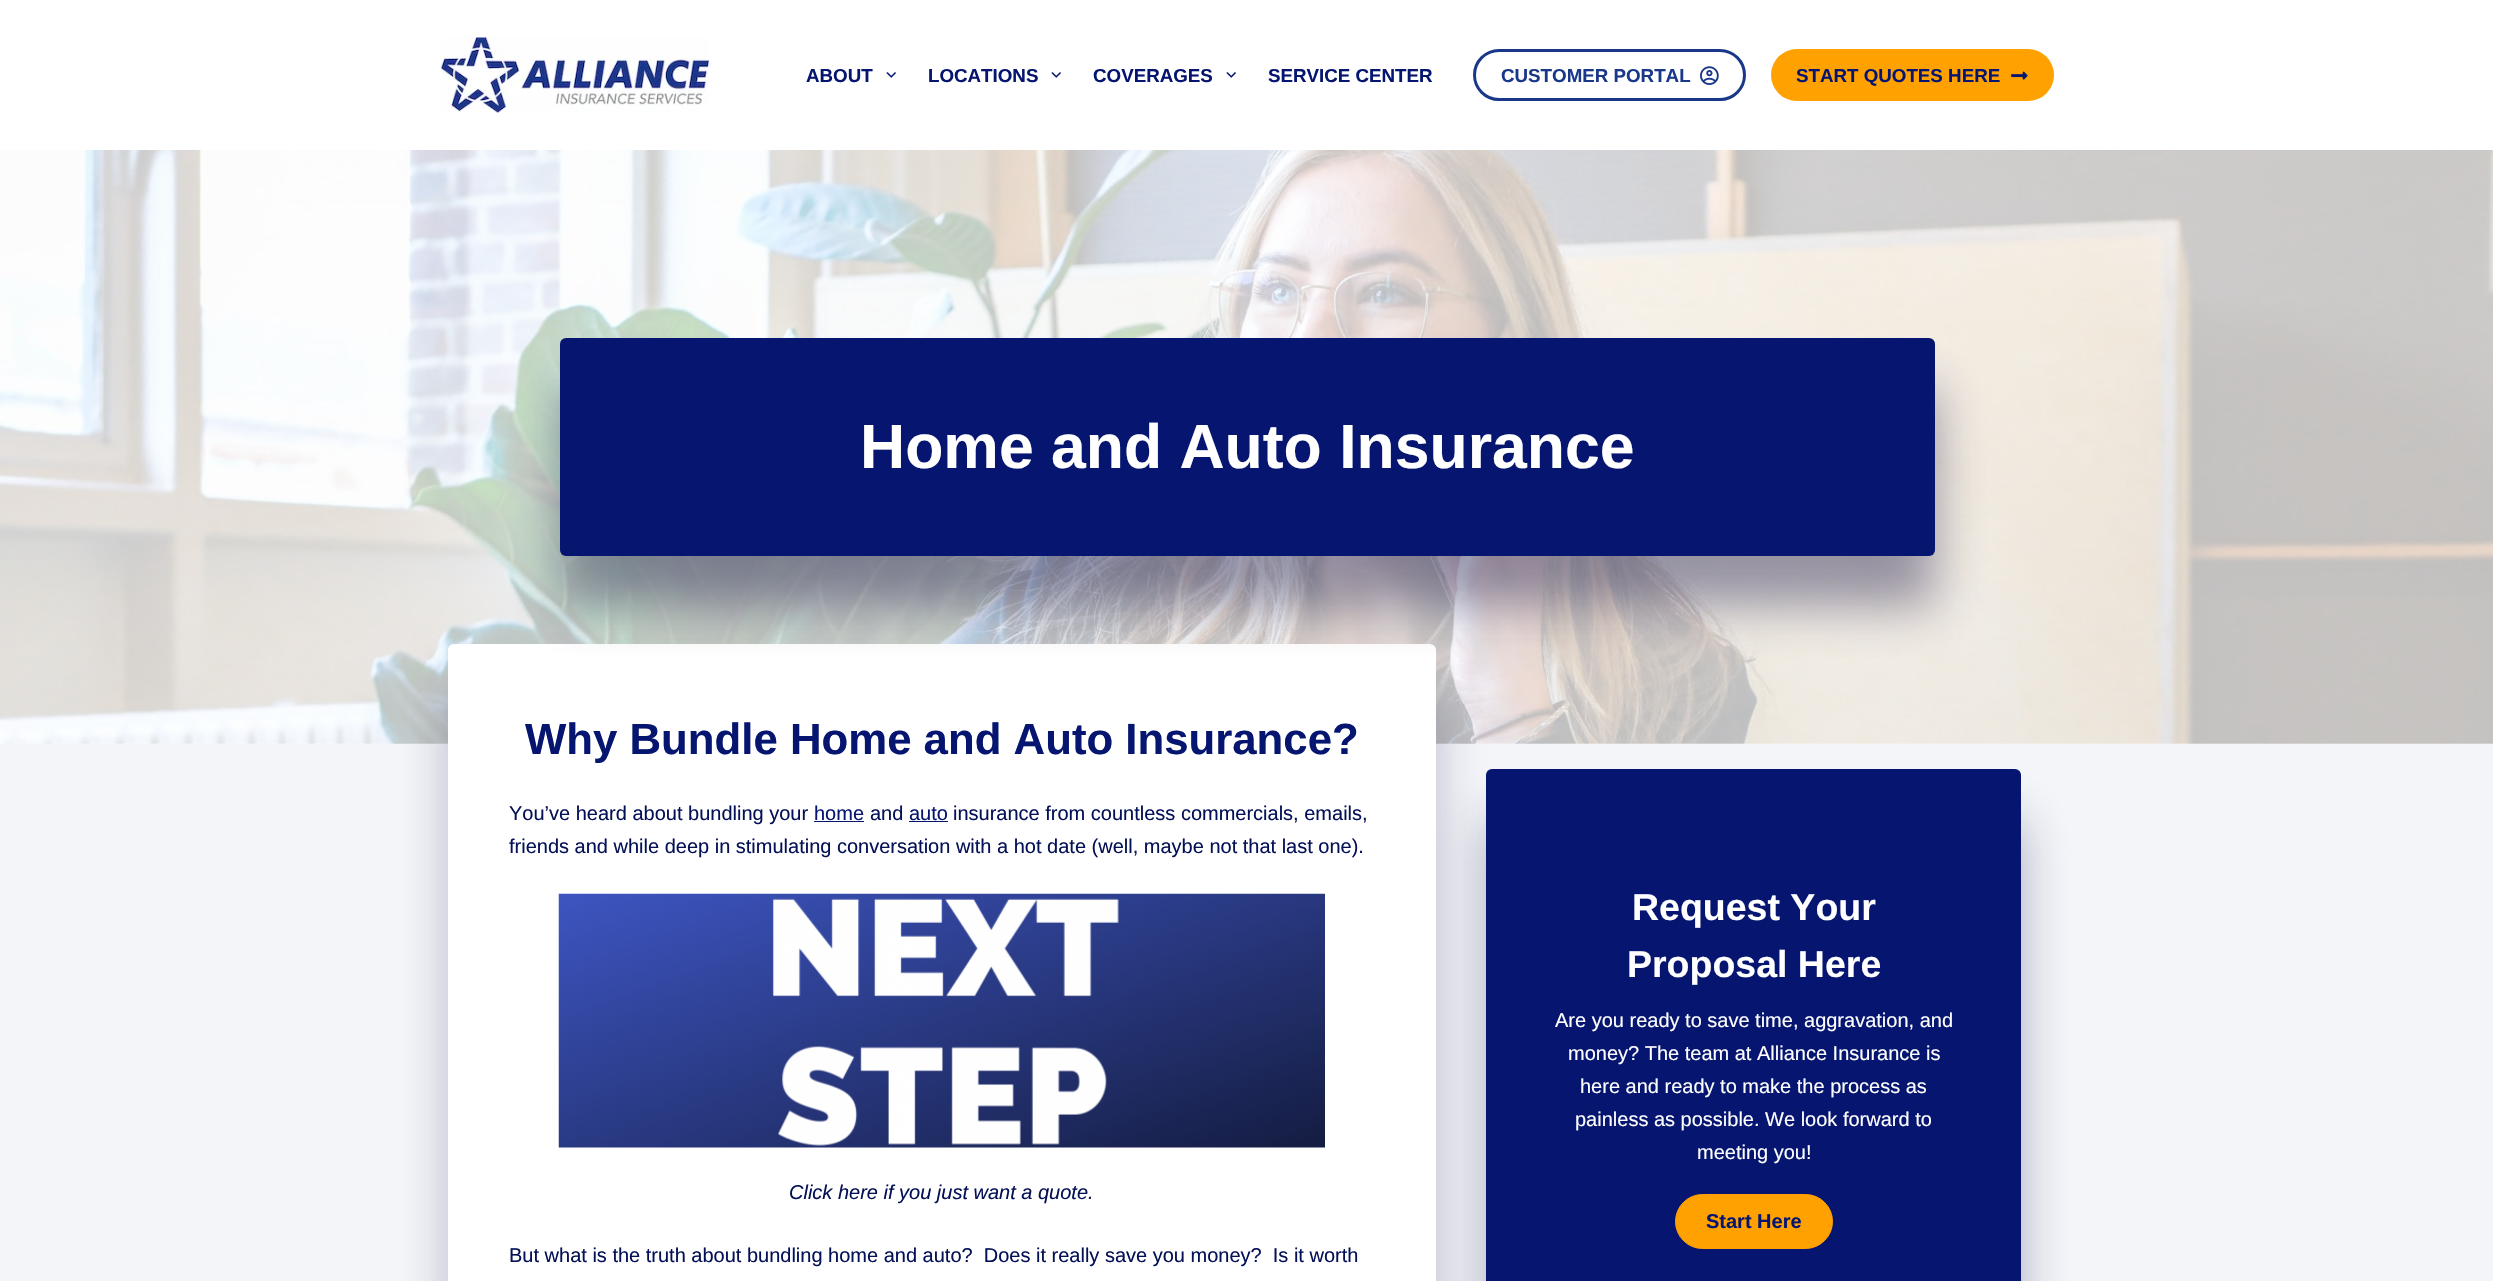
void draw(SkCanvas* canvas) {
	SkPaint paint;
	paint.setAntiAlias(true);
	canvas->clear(0xffffffff);
	canvas->drawImageRect(SkImages::DeferredFromEncodedData(SkData::MakeFromFileName("img1.png")), SkRect::MakeXYWH(441, 37, 268, 76), SkSamplingOptions());
	SkFont f1(fontMgr->matchFamilyStyle("Liberation Sans", SkFontStyle::Bold()), 18.75);
	f1.setSubpixel(true);
	paint.setColor(0xff061670);
	canvas->drawString("ABOUT", 806, 82, f1, paint);
	canvas->drawImageRect(SkImages::DeferredFromEncodedData(SkData::MakeFromFileName("img2.png")), SkRect::MakeXYWH(886, 72, 10, 6), SkSamplingOptions());
	canvas->drawString("LOCATIONS", 928, 82, f1, paint);
	canvas->drawImageRect(SkImages::DeferredFromEncodedData(SkData::MakeFromFileName("img2.png")), SkRect::MakeXYWH(1051, 72, 10, 6), SkSamplingOptions());
	canvas->drawString("COVERAGES", 1093, 82, f1, paint);
	canvas->drawImageRect(SkImages::DeferredFromEncodedData(SkData::MakeFromFileName("img2.png")), SkRect::MakeXYWH(1226, 72, 10, 6), SkSamplingOptions());
	canvas->drawString("SERVICE CENTER", 1268, 82, f1, paint);
	paint.setStroke(true);
	paint.setStrokeWidth(3);
	paint.setColor(0xff1a388a);
	canvas->drawRoundRect(SkRect::MakeXYWH(1474.5, 50.5, 270, 49), 24.5, 24.5, paint);
	paint.setStroke(false);
	canvas->drawString("CUSTOMER PORTAL", 1501, 82, f1, paint);
	canvas->drawImageRect(SkImages::DeferredFromEncodedData(SkData::MakeFromFileName("img3.png")), SkRect::MakeXYWH(1700, 66, 19, 19), SkSamplingOptions());
	paint.setColor(0xffffa100);
	canvas->drawRoundRect(SkRect::MakeXYWH(1771, 49, 283, 52), 26, 26, paint);
	paint.setColor(0xff061670);
	canvas->drawString("START QUOTES HERE", 1796, 82, f1, paint);
	canvas->drawImageRect(SkImages::DeferredFromEncodedData(SkData::MakeFromFileName("img4.png")), SkRect::MakeXYWH(2011, 71, 17, 9), SkSamplingOptions());
	canvas->drawImageRect(SkImages::DeferredFromEncodedData(SkData::MakeFromFileName("img5.png")), SkRect::MakeXYWH(0, 150, 2493, 594), SkSamplingOptions());
	paint.setColor(0xfff3f5f9);
	canvas->drawRect(SkRect::MakeXYWH(0, 744, 2493, 537), paint);
	paint.setColor(0x451c1949);
	paint.setMaskFilter(SkMaskFilter::MakeBlur(kNormal_SkBlurStyle, 25));
	canvas->drawRoundRect(SkRect::MakeXYWH(448, 694, 988, 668), 6, 6, paint);
	paint.setMaskFilter(nullptr);
	paint.setColor(0xffffffff);
	canvas->drawRoundRect(SkRect::MakeXYWH(448, 644, 988, 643), 6, 6, paint);
	paint.setColor(0x6e1c1949);
	paint.setMaskFilter(SkMaskFilter::MakeBlur(kNormal_SkBlurStyle, 25));
	canvas->drawRoundRect(SkRect::MakeXYWH(560, 388, 1375, 218), 6, 6, paint);
	paint.setMaskFilter(nullptr);
	paint.setColor(0xff061670);
	canvas->drawRoundRect(SkRect::MakeXYWH(560, 338, 1375, 218), 6, 6, paint);
	SkFont f2(fontMgr->matchFamilyStyle("Liberation Sans", SkFontStyle::Bold()), 62.5);
	f2.setSubpixel(true);
	paint.setColor(0xffffffff);
	canvas->drawString("Home and Auto Insurance", 860, 468, f2, paint);
	SkFont f3(fontMgr->matchFamilyStyle("Liberation Sans", SkFontStyle::Bold()), 43.75);
	f3.setSubpixel(true);
	paint.setColor(0xff061670);
	canvas->drawString("Why Bundle Home and Auto Insurance?", 525, 754, f3, paint);
	SkFont f4(fontMgr->matchFamilyStyle("Liberation Sans", SkFontStyle::Normal()), 20);
	f4.setSubpixel(true);
	paint.setColor(0xff051157);
	canvas->drawString("You’ve heard about bundling your", 509, 820, f4, paint);
	paint.setColor(0xff061670);
	canvas->drawString("home", 814, 820, f4, paint);
	canvas->drawRect(SkRect::MakeXYWH(814, 821, 50, 1), paint);
	paint.setColor(0xff051157);
	canvas->drawString("and", 870, 820, f4, paint);
	paint.setColor(0xff061670);
	canvas->drawString("auto", 909, 820, f4, paint);
	canvas->drawRect(SkRect::MakeXYWH(909, 821, 39, 1), paint);
	paint.setColor(0xff051157);
	canvas->drawString("insurance from countless commercials, emails,", 953, 820, f4, paint);
	canvas->drawString("friends and while deep in stimulating conversation with a hot date (well, maybe not that last one).", 509, 853, f4, paint);
	canvas->drawImageRect(SkImages::DeferredFromEncodedData(SkData::MakeFromFileName("img6.png")), SkRect::MakeXYWH(558, 893, 767, 255), SkSamplingOptions());
	SkFont f5(fontMgr->matchFamilyStyle("Liberation Sans", SkFontStyle::Italic()), 20);
	f5.setSubpixel(true);
	canvas->drawString("Click here if you just want a quote.", 789, 1199, f5, paint);
	canvas->drawString("But what is the truth about bundling home and auto?  Does it really save you money?  Is it worth", 509, 1262, f4, paint);
	paint.setColor(0x541c1949);
	paint.setMaskFilter(SkMaskFilter::MakeBlur(kNormal_SkBlurStyle, 25));
	canvas->drawRoundRect(SkRect::MakeXYWH(1486, 819, 535, 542), 6, 6, paint);
	paint.setMaskFilter(nullptr);
	paint.setColor(0xff061670);
	canvas->drawRoundRect(SkRect::MakeXYWH(1486, 769, 535, 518), 6, 6, paint);
	SkFont f6(fontMgr->matchFamilyStyle("Liberation Sans", SkFontStyle::Bold()), 37.5);
	f6.setSubpixel(true);
	paint.setColor(0xffffffff);
	canvas->drawString("Request Your", 1632, 920, f6, paint);
	canvas->drawString("Proposal Here", 1627, 977, f6, paint);
	canvas->drawString("Are you ready to save time, aggravation, and", 1555, 1027, f4, paint);
	canvas->drawString("money? The team at Alliance Insurance is", 1568, 1060, f4, paint);
	canvas->drawString("here and ready to make the process as", 1580, 1093, f4, paint);
	canvas->drawString("painless as possible. We look forward to", 1575, 1126, f4, paint);
	canvas->drawString("meeting you!", 1697, 1159, f4, paint);
	paint.setColor(0xffffa100);
	canvas->drawRoundRect(SkRect::MakeXYWH(1675.5, 1194.5, 157, 54), 27, 27, paint);
	paint.setStroke(true);
	paint.setStrokeWidth(1);
	canvas->drawRoundRect(SkRect::MakeXYWH(1675.5, 1194.5, 157, 54), 27, 27, paint);
	SkFont f7(fontMgr->matchFamilyStyle("Liberation Sans", SkFontStyle::Bold()), 20);
	f7.setSubpixel(true);
	paint.setStroke(false);
	paint.setColor(0xff061670);
	canvas->drawString("Start Here", 1706, 1228, f7, paint);
}
